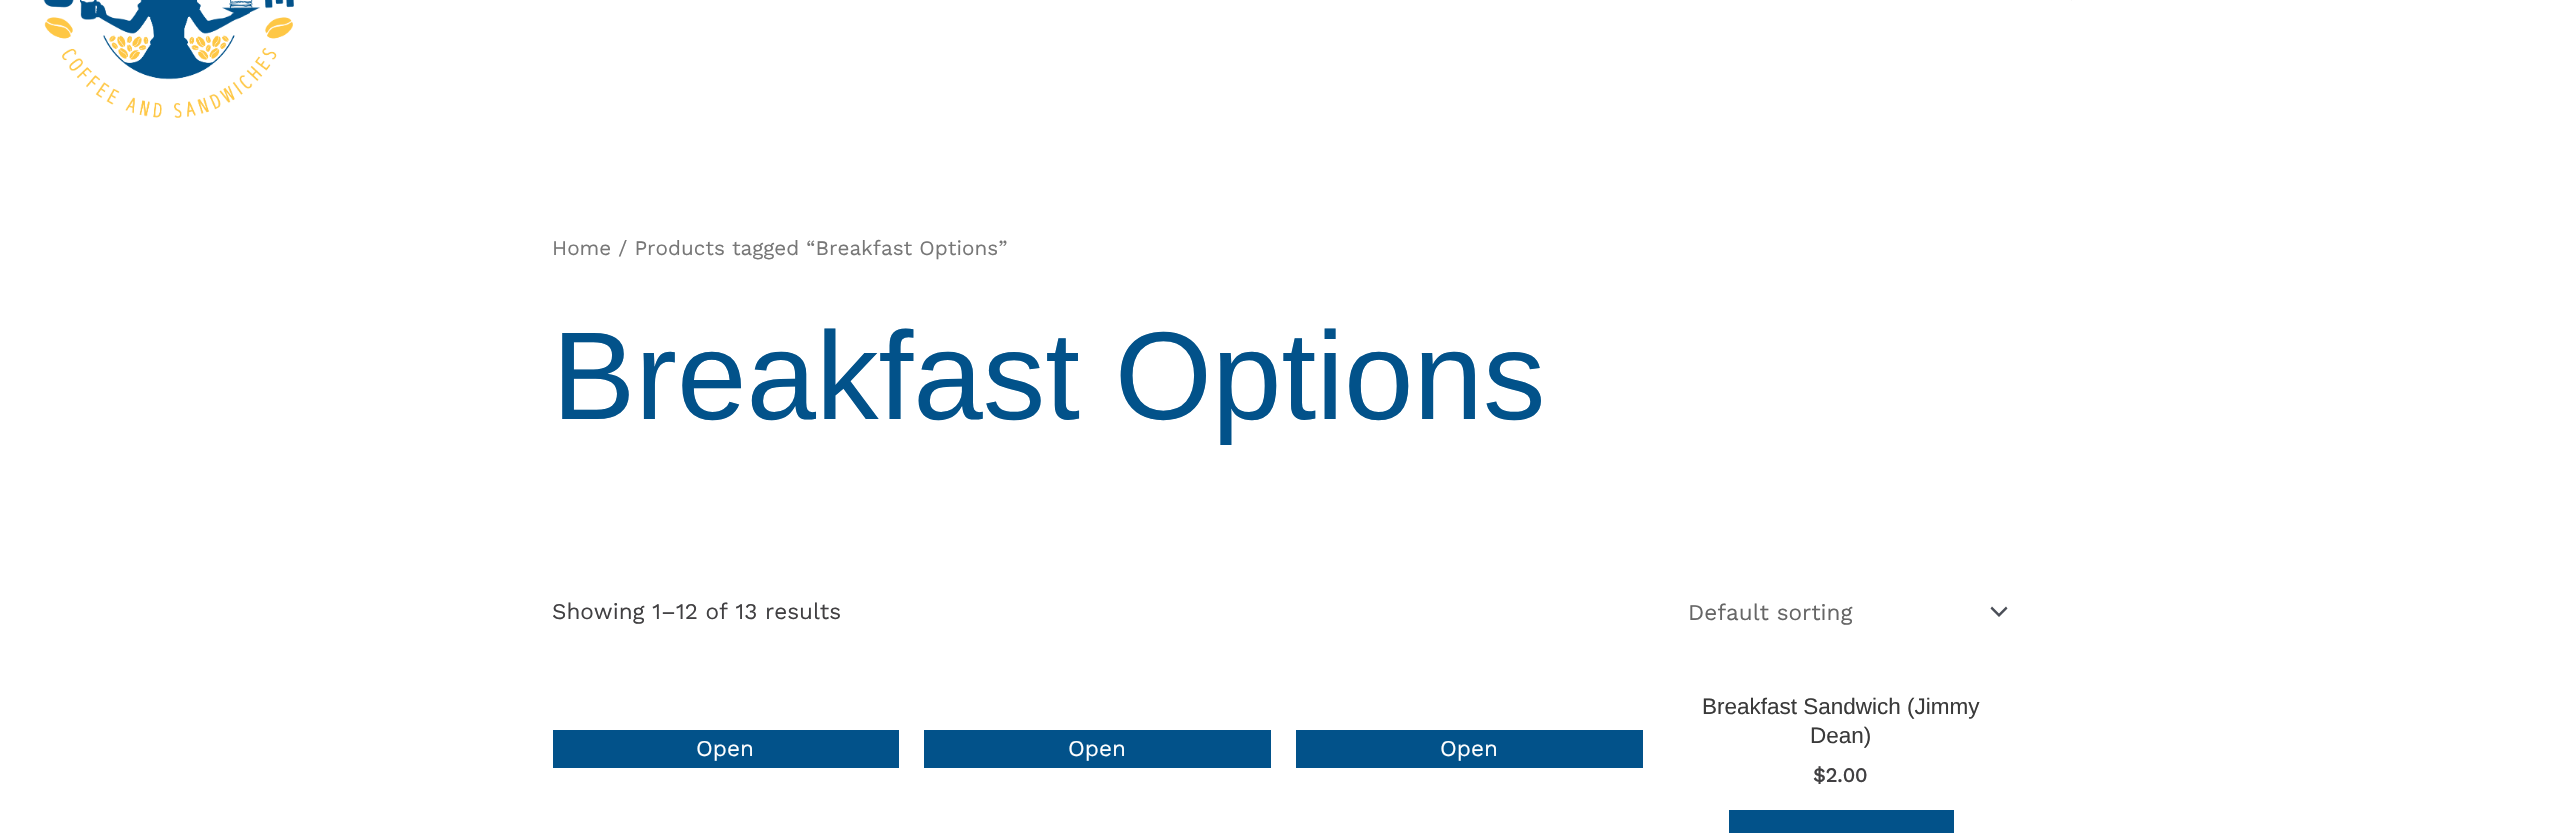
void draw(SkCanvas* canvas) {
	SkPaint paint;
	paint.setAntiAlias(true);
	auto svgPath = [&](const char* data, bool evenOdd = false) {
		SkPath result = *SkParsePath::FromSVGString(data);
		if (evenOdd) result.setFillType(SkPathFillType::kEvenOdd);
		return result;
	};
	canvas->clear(0xffffffff);
	canvas->drawImageRect(SkImages::DeferredFromEncodedData(SkData::MakeFromFileName("img1.png")), SkRect::MakeXYWH(43, 0, 251, 118), SkSamplingOptions());
	paint.setColor(0xfff7f7f7);
	canvas->drawRect(SkRect::MakeXYWH(2071, 0, 1, 1), paint);
	SkFont f1(fontMgr->matchFamilyStyle("Work Sans", SkFontStyle::Normal()), 20.7);
	f1.setSubpixel(true);
	paint.setColor(0xff777777);
	canvas->drawString("Home / Products tagged “Breakfast Options”", 552, 255, f1, paint);
	SkFont f2(fontMgr->matchFamilyStyle("Liberation Sans", SkFontStyle::Normal()), 125);
	f2.setSubpixel(true);
	paint.setColor(0xff02528a);
	canvas->drawString("Breakfast Options", 552, 419, f2, paint);
	SkFont f3(fontMgr->matchFamilyStyle("Work Sans", SkFontStyle::Normal()), 22.5);
	f3.setSubpixel(true);
	paint.setColor(0xff414042);
	canvas->drawString("Showing 1–12 of 13 results", 552, 619, f3, paint);
	paint.setColor(0xff4b4f58);
	canvas->drawPath(svgPath("M1990.5 608.5L1999 617L2007.5 608.5L2006 606.5L1999 613.5L1992 606.5Z"), paint);
	paint.setColor(0xff666666);
	canvas->drawString("Default sorting", 1688, 620, f3, paint);
	paint.setColor(0xff02528a);
	canvas->drawRect(SkRect::MakeXYWH(553, 730, 346, 38), paint);
	paint.setColor(0xffffffff);
	canvas->drawString("Open", 696, 756, f3, paint);
	paint.setColor(0xff02528a);
	canvas->drawRect(SkRect::MakeXYWH(924, 730, 347, 38), paint);
	paint.setColor(0xffffffff);
	canvas->drawString("Open", 1068, 756, f3, paint);
	paint.setColor(0xff02528a);
	canvas->drawRect(SkRect::MakeXYWH(1296, 730, 347, 38), paint);
	paint.setColor(0xffffffff);
	canvas->drawString("Open", 1440, 756, f3, paint);
	SkFont f4(fontMgr->matchFamilyStyle("Liberation Sans", SkFontStyle::Normal()), 22.5);
	f4.setSubpixel(true);
	paint.setColor(0xff3a3a3a);
	canvas->drawString("Breakfast Sandwich (Jimmy", 1702, 714, f4, paint);
	canvas->drawString("Dean)", 1810, 743, f4, paint);
	SkFont f5(fontMgr->matchFamilyStyle("Work Sans", SkFontStyle::Bold()), 20);
	f5.setSubpixel(true);
	paint.setColor(0xff414042);
	canvas->drawString("$2.00", 1813, 782, f5, paint);
	paint.setColor(0xff02528a);
	canvas->drawRect(SkRect::MakeXYWH(1729, 810, 225, 23), paint);
}
